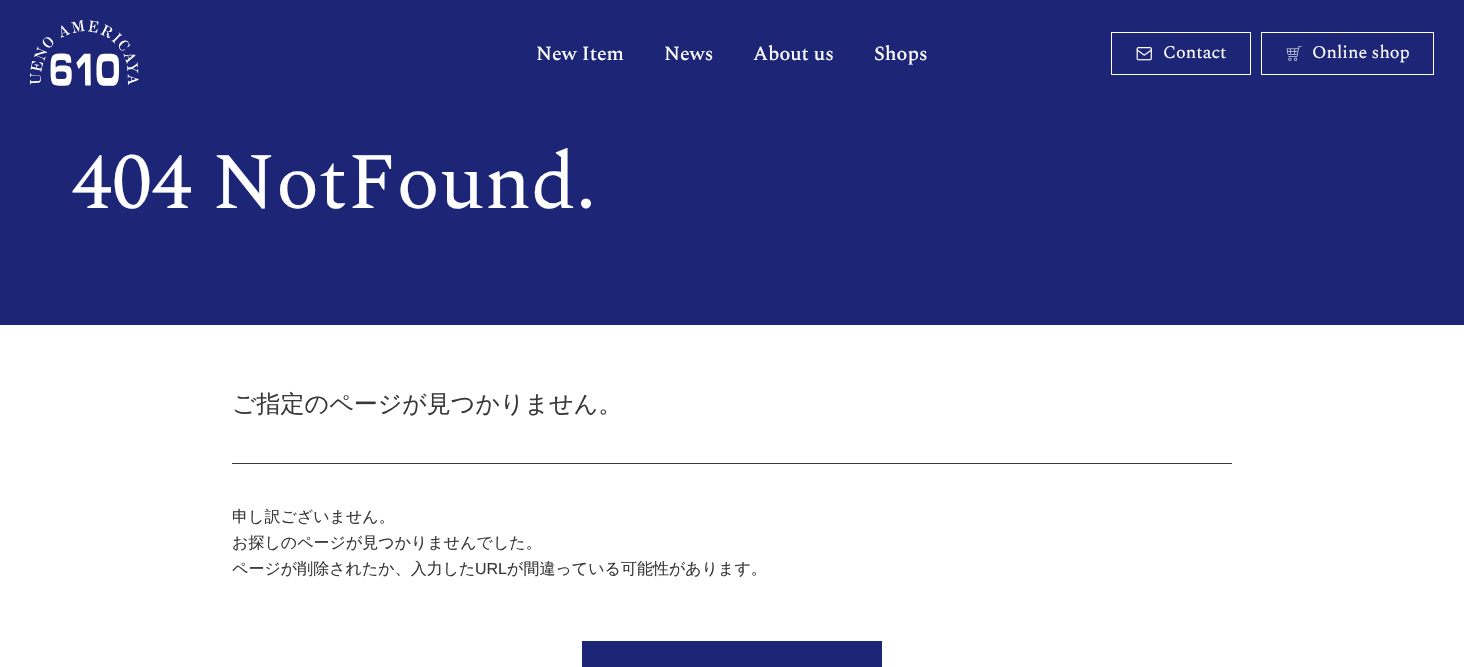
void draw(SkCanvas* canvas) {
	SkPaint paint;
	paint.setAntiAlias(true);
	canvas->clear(0xffffffff);
	paint.setColor(0xff1d2577);
	canvas->drawRect(SkRect::MakeXYWH(0, 0, 1464, 325), paint);
	canvas->drawImageRect(SkImages::DeferredFromEncodedData(SkData::MakeFromFileName("img1.png")), SkRect::MakeXYWH(30, 20, 109, 66), SkSamplingOptions());
	SkFont f1(fontMgr->matchFamilyStyle("Spectral", SkFontStyle(500, SkFontStyle::kNormal_Width, SkFontStyle::kUpright_Slant)), 20);
	f1.setSubpixel(true);
	paint.setColor(0xffffffff);
	canvas->drawString("New Item", 536, 60, f1, paint);
	canvas->drawString("News", 664, 60, f1, paint);
	canvas->drawString("About us", 753, 60, f1, paint);
	canvas->drawString("Shops", 874, 60, f1, paint);
	paint.setStroke(true);
	paint.setStrokeWidth(1);
	canvas->drawRect(SkRect::MakeXYWH(1111.5, 32.5, 139, 42), paint);
	canvas->drawImageRect(SkImages::DeferredFromEncodedData(SkData::MakeFromFileName("img2.png")), SkRect::MakeXYWH(1136, 47, 16, 14), SkSamplingOptions());
	SkFont f2(fontMgr->matchFamilyStyle("Spectral", SkFontStyle::Normal()), 18);
	f2.setSubpixel(true);
	paint.setStroke(false);
	canvas->drawString("Contact", 1163, 58, f2, paint);
	paint.setStroke(true);
	canvas->drawRect(SkRect::MakeXYWH(1261.5, 32.5, 172, 42), paint);
	canvas->drawImageRect(SkImages::DeferredFromEncodedData(SkData::MakeFromFileName("img3.png")), SkRect::MakeXYWH(1286, 46, 16, 15), SkSamplingOptions());
	paint.setStroke(false);
	canvas->drawString("Online shop", 1312, 58, f2, paint);
	SkFont f3(fontMgr->matchFamilyStyle("Spectral", SkFontStyle::Normal()), 80);
	f3.setSubpixel(true);
	canvas->drawString("404 NotFound.", 72, 208, f3, paint);
	paint.setColor(0xff383838);
	canvas->drawRect(SkRect::MakeXYWH(232, 463, 1000, 1), paint);
	SkFont f4(fontMgr->matchFamilyStyle("WenQuanYi Zen Hei", SkFontStyle(500, SkFontStyle::kNormal_Width, SkFontStyle::kUpright_Slant)), 24);
	f4.setSubpixel(true);
	canvas->drawString("ご指定のページが見つかりません。", 232, 412, f4, paint);
	SkFont f5(fontMgr->matchFamilyStyle("WenQuanYi Zen Hei", SkFontStyle(500, SkFontStyle::kNormal_Width, SkFontStyle::kUpright_Slant)), 16);
	f5.setSubpixel(true);
	canvas->drawString("申し訳ございません。", 232, 522, f5, paint);
	canvas->drawString("お探しのページが見つかりませんでした。", 232, 548, f5, paint);
	canvas->drawString("ページが削除されたか、入力した", 232, 574, f5, paint);
	SkFont f6(fontMgr->matchFamilyStyle("Liberation Sans", SkFontStyle::Normal()), 16);
	f6.setSubpixel(true);
	canvas->drawString("URL", 475, 574, f6, paint);
	canvas->drawString("が間違っている可能性があります。", 507, 574, f5, paint);
	paint.setColor(0xff1d2577);
	canvas->drawRect(SkRect::MakeXYWH(582, 641, 300, 26), paint);
}
